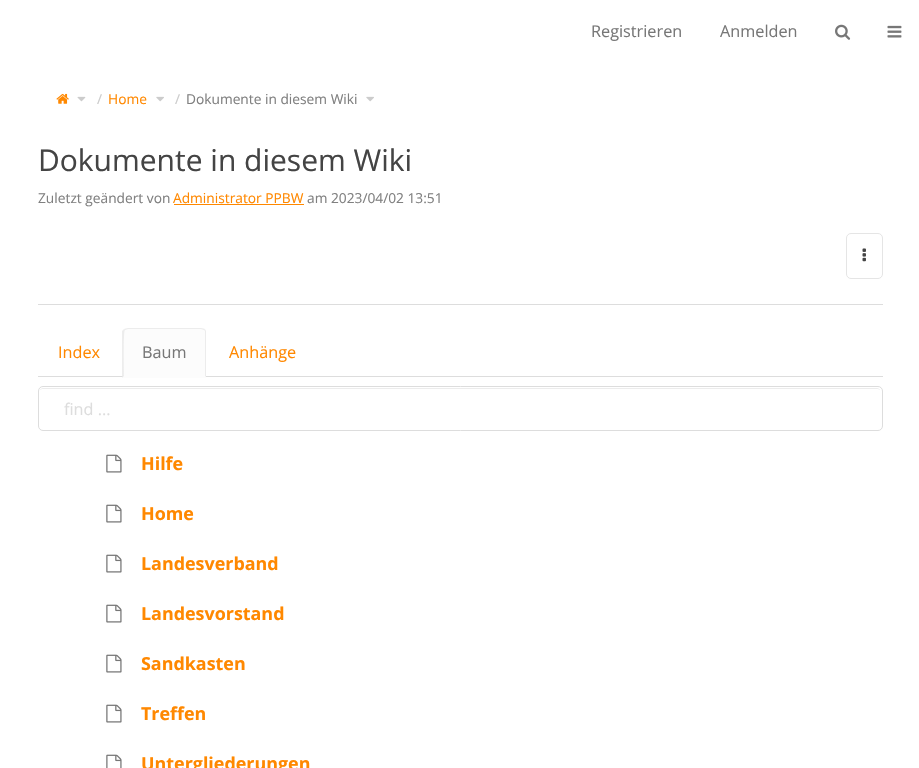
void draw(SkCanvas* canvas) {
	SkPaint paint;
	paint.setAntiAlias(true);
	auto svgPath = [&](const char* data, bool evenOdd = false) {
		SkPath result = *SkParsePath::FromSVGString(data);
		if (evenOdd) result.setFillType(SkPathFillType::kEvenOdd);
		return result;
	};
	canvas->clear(0xffffffff);
	SkFont f1(fontMgr->matchFamilyStyle("Open Sans", SkFontStyle::Normal()), 16.25);
	f1.setSubpixel(true);
	paint.setColor(0xff777777);
	canvas->drawString("Registrieren", 591, 37, f1, paint);
	canvas->drawString("Anmelden", 720, 37, f1, paint);
	canvas->drawImageRect(SkImages::DeferredFromEncodedData(SkData::MakeFromFileName("img1.png")), SkRect::MakeXYWH(835, 24, 16, 16), SkSamplingOptions());
	canvas->drawImageRect(SkImages::DeferredFromEncodedData(SkData::MakeFromFileName("img2.png")), SkRect::MakeXYWH(887, 25, 15, 13), SkSamplingOptions());
	canvas->drawImageRect(SkImages::DeferredFromEncodedData(SkData::MakeFromFileName("img3.png")), SkRect::MakeXYWH(56, 93, 13, 11), SkSamplingOptions());
	canvas->drawImageRect(SkImages::DeferredFromEncodedData(SkData::MakeFromFileName("img4.png")), SkRect::MakeXYWH(77, 96, 9, 6), SkSamplingOptions());
	SkFont f2(fontMgr->matchFamilyStyle("Open Sans", SkFontStyle::Normal()), 13.75);
	f2.setSubpixel(true);
	paint.setColor(0xffcccccc);
	canvas->drawString("/", 97, 104, f2, paint);
	paint.setColor(0xffff8800);
	canvas->drawString("Home", 108, 104, f2, paint);
	canvas->drawImageRect(SkImages::DeferredFromEncodedData(SkData::MakeFromFileName("img5.png")), SkRect::MakeXYWH(156, 96, 8, 6), SkSamplingOptions());
	paint.setColor(0xffcccccc);
	canvas->drawString("/", 175, 104, f2, paint);
	paint.setColor(0xff808080);
	canvas->drawString("Dokumente in diesem Wiki", 186, 104, f2, paint);
	canvas->drawImageRect(SkImages::DeferredFromEncodedData(SkData::MakeFromFileName("img5.png")), SkRect::MakeXYWH(366, 96, 8, 6), SkSamplingOptions());
	SkFont f3(fontMgr->matchFamilyStyle("Open Sans", SkFontStyle::Normal()), 30);
	f3.setSubpixel(true);
	paint.setColor(0xff444444);
	canvas->drawString("Dokumente in diesem Wiki", 38, 171, f3, paint);
	paint.setColor(0xff808080);
	canvas->drawString("Zuletzt geändert von", 38, 203, f2, paint);
	paint.setColor(0xffff8800);
	canvas->drawString("Administrator PPBW", 173, 203, f2, paint);
	canvas->drawRect(SkRect::MakeXYWH(174, 204, 130, 1), paint);
	paint.setColor(0xff808080);
	canvas->drawString("am 2023/04/02 13:51", 307, 203, f2, paint);
	paint.setStroke(true);
	paint.setStrokeWidth(1);
	paint.setColor(0xffe5e5e5);
	canvas->drawRoundRect(SkRect::MakeXYWH(846.5, 233.5, 36, 45), 4.5, 4.5, paint);
	canvas->drawImageRect(SkImages::DeferredFromEncodedData(SkData::MakeFromFileName("img6.png")), SkRect::MakeXYWH(862, 248, 4, 14), SkSamplingOptions());
	paint.setStroke(false);
	paint.setColor(0xffdddddd);
	canvas->drawRect(SkRect::MakeXYWH(38, 304, 845, 1), paint);
	canvas->drawRect(SkRect::MakeXYWH(38, 376, 845, 1), paint);
	paint.setColor(0xffff8800);
	canvas->drawString("Index", 58, 358, f1, paint);
	paint.setColor(0xfffcfcfc);
	canvas->drawPath(svgPath("M128 328H201C204 328 206 330 206 333V378H123V333C123 330 125 328 128 328Z"), paint);
	paint.setColor(0xffececec);
	canvas->drawPath(svgPath("M128 328L124 329L125 330L128 329H201L204 330L205 329L201 328Z"), paint);
	paint.setColor(0xcce8e8e8);
	canvas->drawPath(svgPath("M206 377V331L205 329L204 330L205 331V376Z"), paint);
	canvas->drawPath(svgPath("M122 378L124 376C124 371 123 331 125 330L124 329L122 331Z"), paint);
	paint.setColor(0xff777777);
	canvas->drawString("Baum", 142, 358, f1, paint);
	paint.setColor(0xffff8800);
	canvas->drawString("Anhänge", 229, 358, f1, paint);
	paint.setColor(0xffececec);
	canvas->drawPath(svgPath("M42 389H878L880 390C880 389 878 388 877 388H43C42 388 40 389 40 390Z"), paint);
	paint.setStroke(true);
	paint.setColor(0xffdddddd);
	canvas->drawRoundRect(SkRect::MakeXYWH(38.5, 386.5, 844, 44), 4.5, 4.5, paint);
	paint.setStroke(false);
	canvas->drawString("find ...", 64, 415, f1, paint);
	canvas->drawImageRect(SkImages::DeferredFromEncodedData(SkData::MakeFromFileName("img7.png")), SkRect::MakeXYWH(106, 454, 16, 19), SkSamplingOptions());
	SkFont f4(fontMgr->matchFamilyStyle("Open Sans", SkFontStyle::Bold()), 17.9);
	f4.setSubpixel(true);
	paint.setColor(0xffff8800);
	canvas->drawString("Hilfe", 141, 470, f4, paint);
	canvas->drawImageRect(SkImages::DeferredFromEncodedData(SkData::MakeFromFileName("img7.png")), SkRect::MakeXYWH(106, 504, 16, 19), SkSamplingOptions());
	canvas->drawString("Home", 141, 520, f4, paint);
	canvas->drawImageRect(SkImages::DeferredFromEncodedData(SkData::MakeFromFileName("img7.png")), SkRect::MakeXYWH(106, 554, 16, 19), SkSamplingOptions());
	canvas->drawString("Landesverband", 141, 570, f4, paint);
	canvas->drawImageRect(SkImages::DeferredFromEncodedData(SkData::MakeFromFileName("img7.png")), SkRect::MakeXYWH(106, 604, 16, 19), SkSamplingOptions());
	canvas->drawString("Landesvorstand", 141, 620, f4, paint);
	canvas->drawImageRect(SkImages::DeferredFromEncodedData(SkData::MakeFromFileName("img7.png")), SkRect::MakeXYWH(106, 654, 16, 19), SkSamplingOptions());
	canvas->drawString("Sandkasten", 141, 670, f4, paint);
	canvas->drawImageRect(SkImages::DeferredFromEncodedData(SkData::MakeFromFileName("img7.png")), SkRect::MakeXYWH(106, 704, 16, 19), SkSamplingOptions());
	canvas->drawString("Treffen", 141, 720, f4, paint);
	canvas->drawImageRect(SkImages::DeferredFromEncodedData(SkData::MakeFromFileName("img8.png")), SkRect::MakeXYWH(106, 754, 16, 14), SkSamplingOptions());
	canvas->drawString("Untergliederungen", 141, 770, f4, paint);
}
